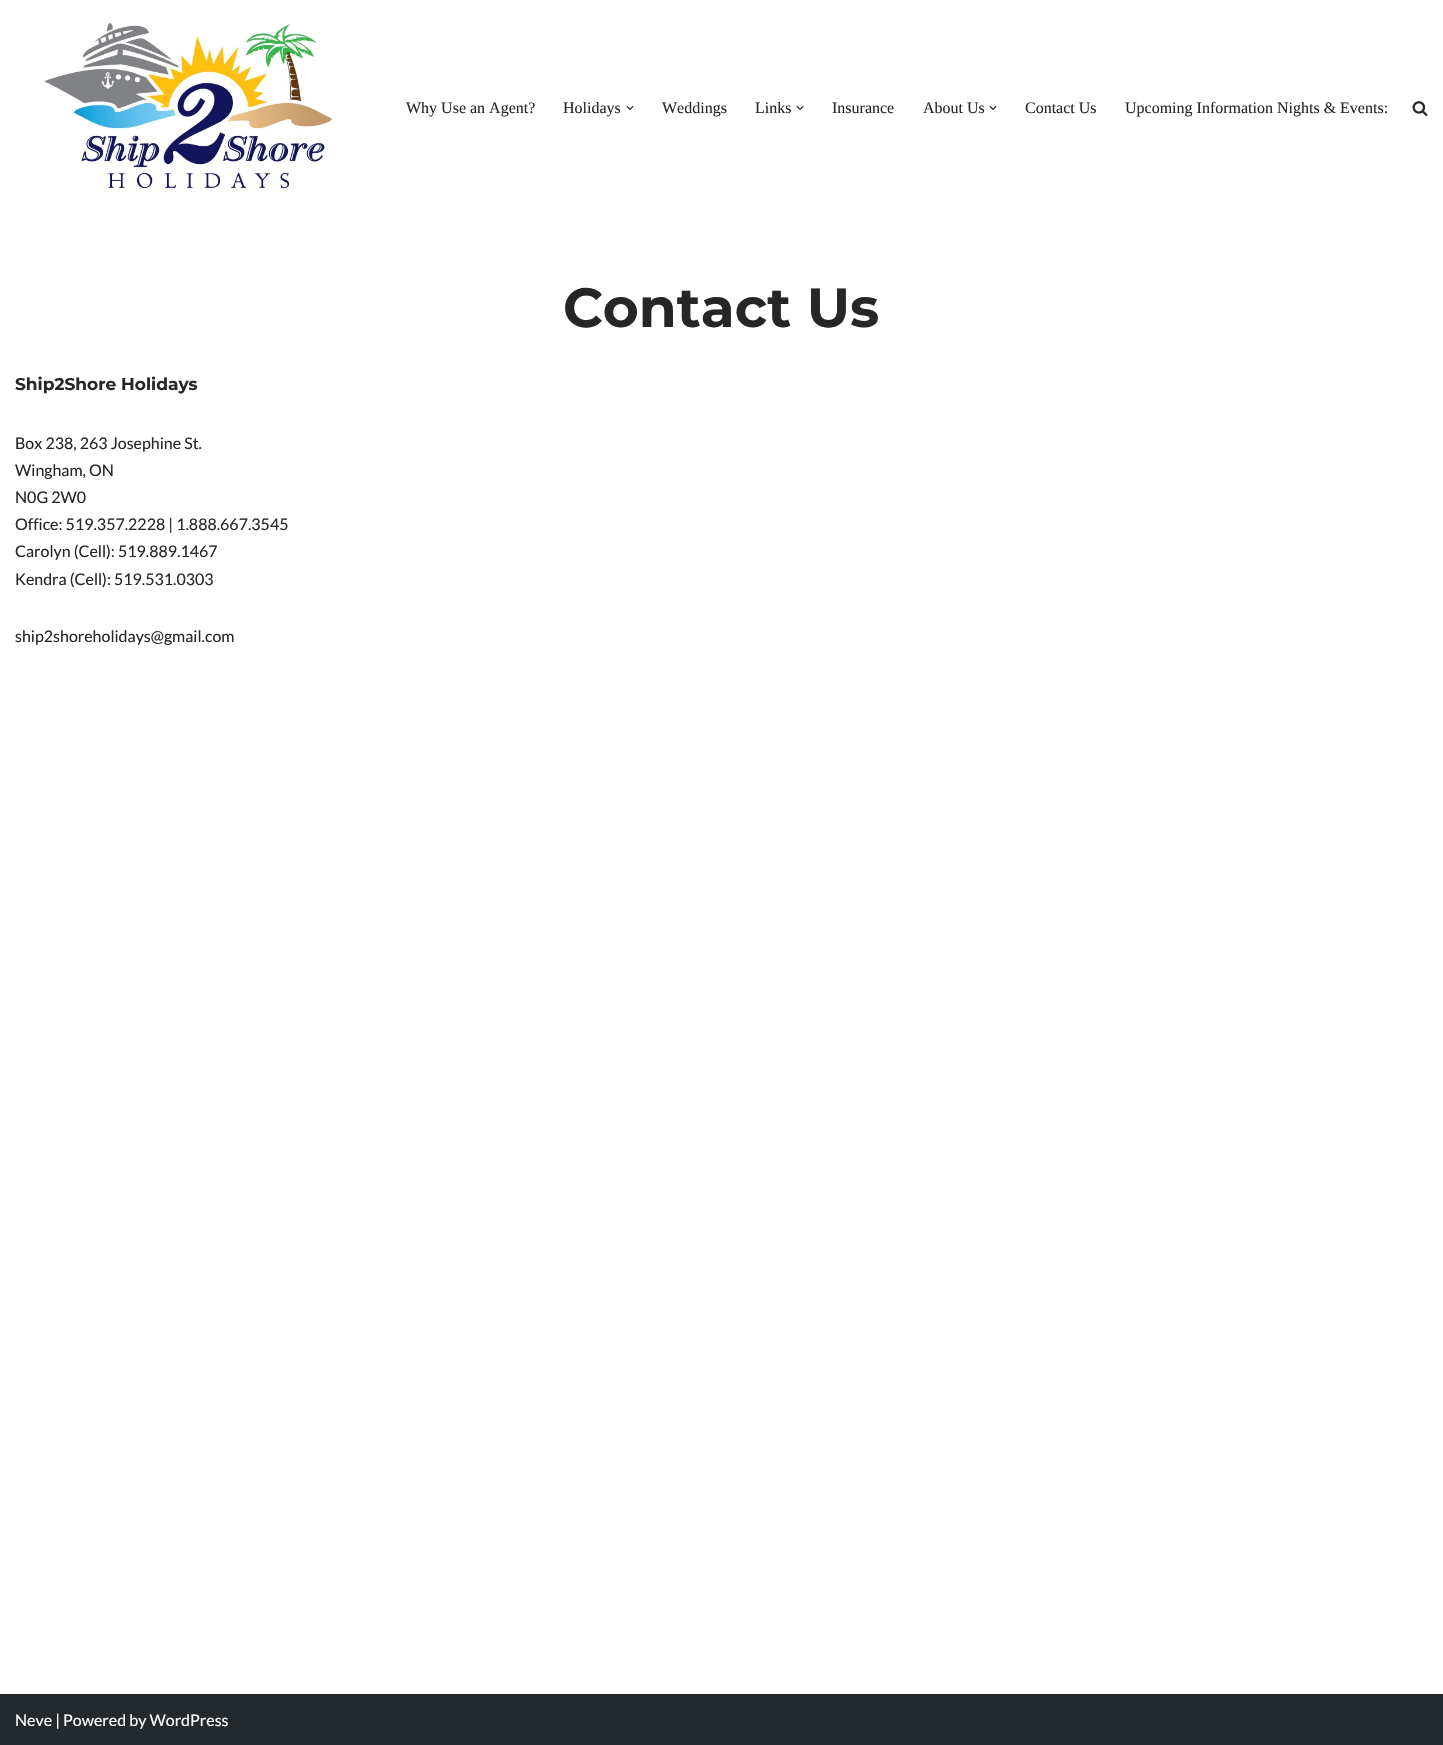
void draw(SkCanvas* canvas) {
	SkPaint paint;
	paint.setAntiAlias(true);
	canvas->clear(0xffffffff);
	canvas->drawImageRect(SkImages::DeferredFromEncodedData(SkData::MakeFromFileName("img1.png")), SkRect::MakeXYWH(44, 23, 289, 168), SkSamplingOptions());
	SkFont f1(fontMgr->matchFamilyStyle("Liberation Serif", SkFontStyle::Normal()), 16);
	f1.setSubpixel(true);
	paint.setColor(0xff272626);
	canvas->drawString("Why Use an Agent?", 406, 113, f1, paint);
	canvas->drawString("Holidays", 563, 113, f1, paint);
	canvas->drawImageRect(SkImages::DeferredFromEncodedData(SkData::MakeFromFileName("img2.png")), SkRect::MakeXYWH(626, 106, 8, 4), SkSamplingOptions());
	canvas->drawString("Weddings", 662, 113, f1, paint);
	canvas->drawString("Links", 755, 113, f1, paint);
	canvas->drawImageRect(SkImages::DeferredFromEncodedData(SkData::MakeFromFileName("img2.png")), SkRect::MakeXYWH(796, 106, 8, 4), SkSamplingOptions());
	canvas->drawString("Insurance", 832, 113, f1, paint);
	canvas->drawString("About Us", 923, 113, f1, paint);
	canvas->drawImageRect(SkImages::DeferredFromEncodedData(SkData::MakeFromFileName("img2.png")), SkRect::MakeXYWH(989, 106, 8, 4), SkSamplingOptions());
	canvas->drawString("Contact Us", 1025, 113, f1, paint);
	canvas->drawString("Upcoming Information Nights & Events:", 1125, 113, f1, paint);
	canvas->drawImageRect(SkImages::DeferredFromEncodedData(SkData::MakeFromFileName("img3.png")), SkRect::MakeXYWH(1412, 101, 16, 15), SkSamplingOptions());
	SkFont f2(fontMgr->matchFamilyStyle("Montserrat", SkFontStyle::Bold()), 55);
	f2.setSubpixel(true);
	canvas->drawString("Contact Us", 563, 327, f2, paint);
	SkFont f3(fontMgr->matchFamilyStyle("Montserrat", SkFontStyle::Bold()), 17);
	f3.setSubpixel(true);
	canvas->drawString("Ship2Shore Holidays", 15, 390, f3, paint);
	SkFont f4(fontMgr->matchFamilyStyle("Lato", SkFontStyle::Normal()), 16);
	f4.setSubpixel(true);
	canvas->drawString("Box 238, 263 Josephine St.", 15, 449, f4, paint);
	canvas->drawString("Wingham, ON", 15, 476, f4, paint);
	canvas->drawString("N0G 2W0", 15, 503, f4, paint);
	canvas->drawString("Office: 519.357.2228 | 1.888.667.3545", 15, 530, f4, paint);
	canvas->drawString("Carolyn (Cell): 519.889.1467", 15, 557, f4, paint);
	canvas->drawString("Kendra (Cell): 519.531.0303", 15, 585, f4, paint);
	canvas->drawString("ship2shoreholidays@gmail.com", 15, 642, f4, paint);
	paint.setColor(0xff24292e);
	canvas->drawRect(SkRect::MakeXYWH(0, 1694, 1443, 51), paint);
	paint.setColor(0xffffffff);
	canvas->drawString("Neve | Powered by WordPress", 15, 1726, f4, paint);
}
